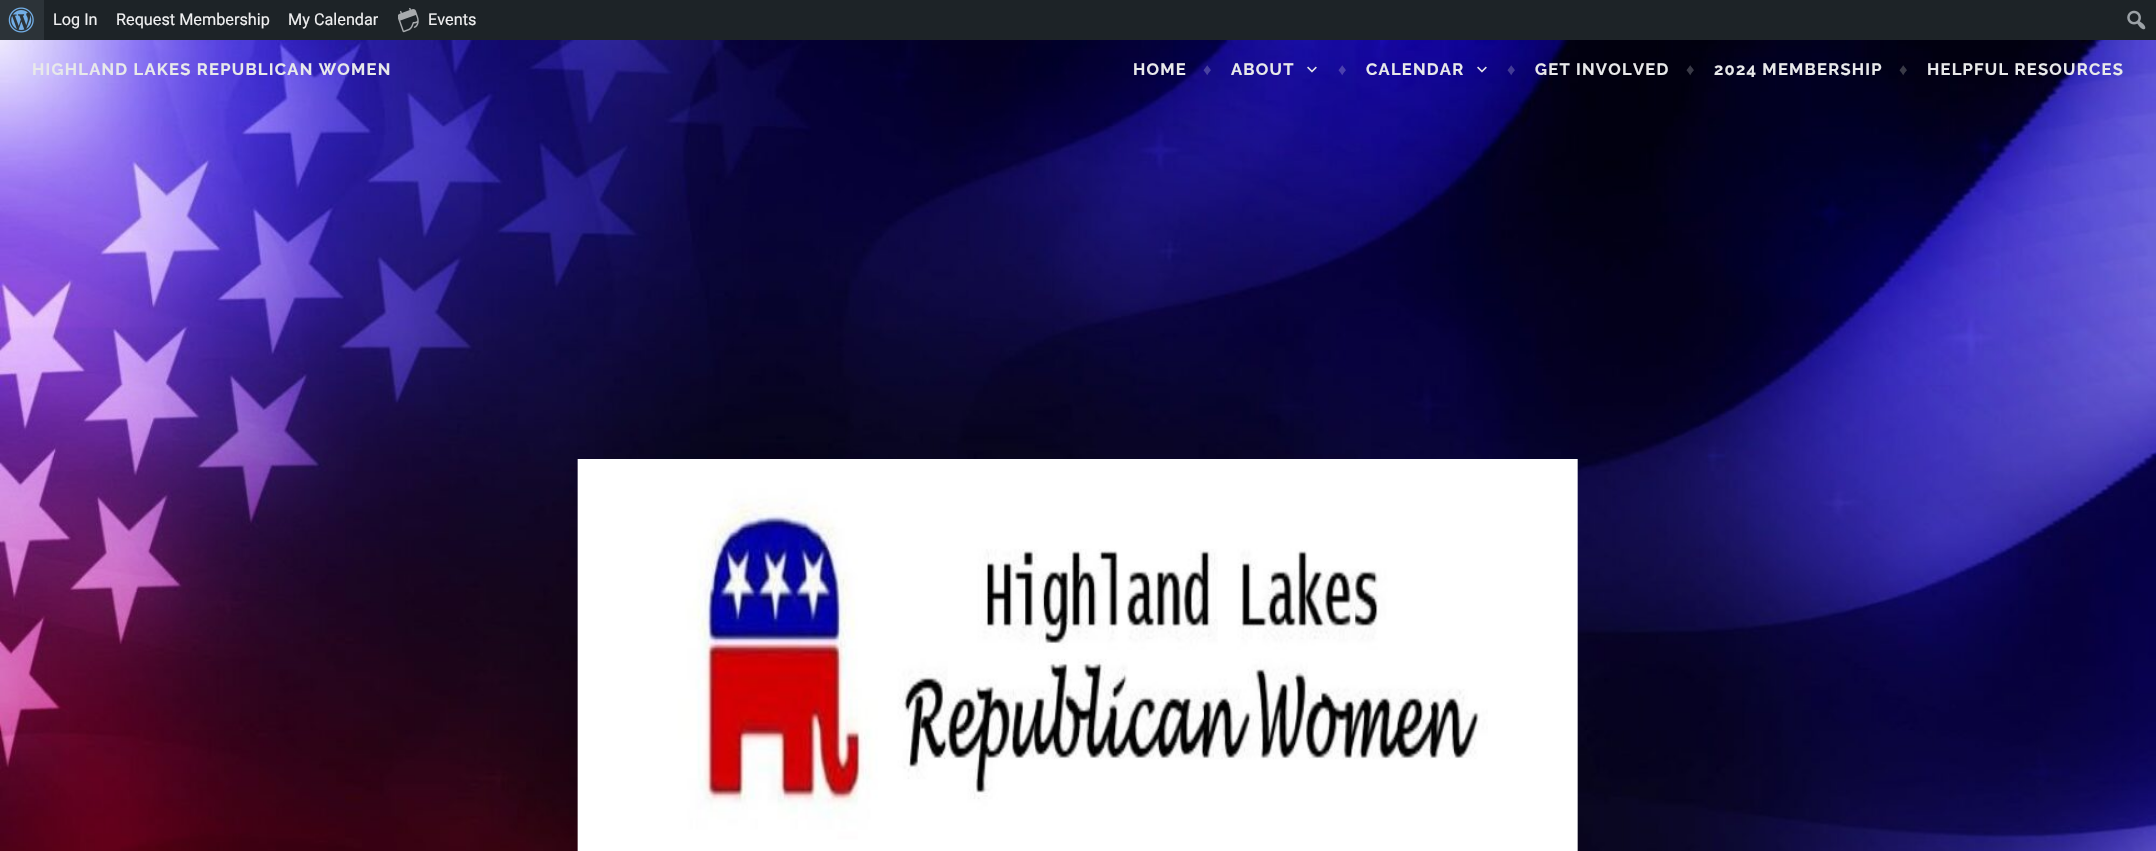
void draw(SkCanvas* canvas) {
	SkPaint paint;
	paint.setAntiAlias(true);
	auto spacedText = [&](const char* s, float x, float y, const SkFont& font, const SkPaint& ink, float letter, float word) {
		std::vector<SkGlyphID> glyphs(font.countText(s, strlen(s), SkTextEncoding::kUTF8));
		std::vector<float> xs(glyphs.size());
		font.textToGlyphs(s, strlen(s), SkTextEncoding::kUTF8, glyphs);
		font.getXPos(glyphs, xs, x);
		float extra = 0;
		for (size_t i = 0; i < glyphs.size(); i++) {
			xs[i] += extra;
			extra += letter + word * (glyphs[i] == font.unicharToGlyph(' '));
		}
		canvas->drawTextBlob(SkTextBlob::MakeFromPosHGlyphs(glyphs, xs, y, font), 0, 0, ink);
	};
	canvas->clear(0xffffffff);
	paint.setColor(0xff1d2327);
	canvas->drawRect(SkRect::MakeXYWH(44, 0, 2112, 40), paint);
	paint.setColor(0xff2c3338);
	canvas->drawRect(SkRect::MakeXYWH(0, 0, 44, 40), paint);
	canvas->drawImageRect(SkImages::DeferredFromEncodedData(SkData::MakeFromFileName("img1.png")), SkRect::MakeXYWH(8, 7, 26, 26), SkSamplingOptions());
	SkFont f1(fontMgr->matchFamilyStyle("Roboto", SkFontStyle::Normal()), 16.25);
	f1.setSubpixel(true);
	paint.setColor(0xfff0f0f1);
	canvas->drawString("Log In", 53, 25, f1, paint);
	canvas->drawString("Request Membership", 116, 25, f1, paint);
	canvas->drawString("My Calendar", 288, 25, f1, paint);
	canvas->drawImageRect(SkImages::DeferredFromEncodedData(SkData::MakeFromFileName("img2.png")), SkRect::MakeXYWH(398, 8, 21, 25), SkSamplingOptions());
	canvas->drawString("Events", 428, 25, f1, paint);
	canvas->drawImageRect(SkImages::DeferredFromEncodedData(SkData::MakeFromFileName("img3.png")), SkRect::MakeXYWH(2127, 10, 19, 20), SkSamplingOptions());
	canvas->drawImageRect(SkImages::DeferredFromEncodedData(SkData::MakeFromFileName("img4.png")), SkRect::MakeXYWH(0, 40, 2156, 811), SkSamplingOptions());
	SkFont f2(fontMgr->matchFamilyStyle("Raleway", SkFontStyle::Bold()), 16.5);
	f2.setSubpixel(true);
	paint.setColor(0xffe8e9ea);
	spacedText("HIGHLAND LAKES REPUBLICAN WOMEN", 32, 75, f2, paint, 1.25, 0);
	spacedText("HOME", 1133, 75, f2, paint, 1.25, 0);
	SkFont f3(fontMgr->matchFamilyStyle("Liberation Sans", SkFontStyle::Bold()), 16.5);
	f3.setSubpixel(true);
	paint.setColor(0xff4941a0);
	spacedText("♦", 1203, 75, f3, paint, 1.25, 0);
	paint.setColor(0xffe8e9ea);
	spacedText("ABOUT", 1231, 75, f2, paint, 1.25, 0);
	canvas->drawImageRect(SkImages::DeferredFromEncodedData(SkData::MakeFromFileName("img5.png")), SkRect::MakeXYWH(1307, 66, 10, 7), SkSamplingOptions());
	paint.setColor(0xff4b41ae);
	spacedText("♦", 1338, 75, f3, paint, 1.25, 0);
	paint.setColor(0xffe8e9ea);
	spacedText("CALENDAR", 1366, 75, f2, paint, 1.25, 0);
	canvas->drawImageRect(SkImages::DeferredFromEncodedData(SkData::MakeFromFileName("img6.png")), SkRect::MakeXYWH(1477, 66, 10, 7), SkSamplingOptions());
	paint.setColor(0xff423b95);
	spacedText("♦", 1507, 75, f3, paint, 1.25, 0);
	paint.setColor(0xffe8e9ea);
	spacedText("GET INVOLVED", 1535, 75, f2, paint, 1.25, 0);
	paint.setColor(0xff3a3a47);
	spacedText("♦", 1686, 75, f3, paint, 1.25, 0);
	paint.setColor(0xffe8e9ea);
	spacedText("2024 MEMBERSHIP", 1714, 75, f2, paint, 1.25, 0);
	paint.setColor(0xff3a3a47);
	spacedText("♦", 1899, 75, f3, paint, 1.25, 0);
	paint.setColor(0xffe8e9ea);
	spacedText("HELPFUL RESOURCES", 1927, 75, f2, paint, 1.25, 0);
	canvas->drawImageRect(SkImages::DeferredFromEncodedData(SkData::MakeFromFileName("img7.png")), SkRect::MakeXYWH(577, 459, 1001, 392), SkSamplingOptions());
}
